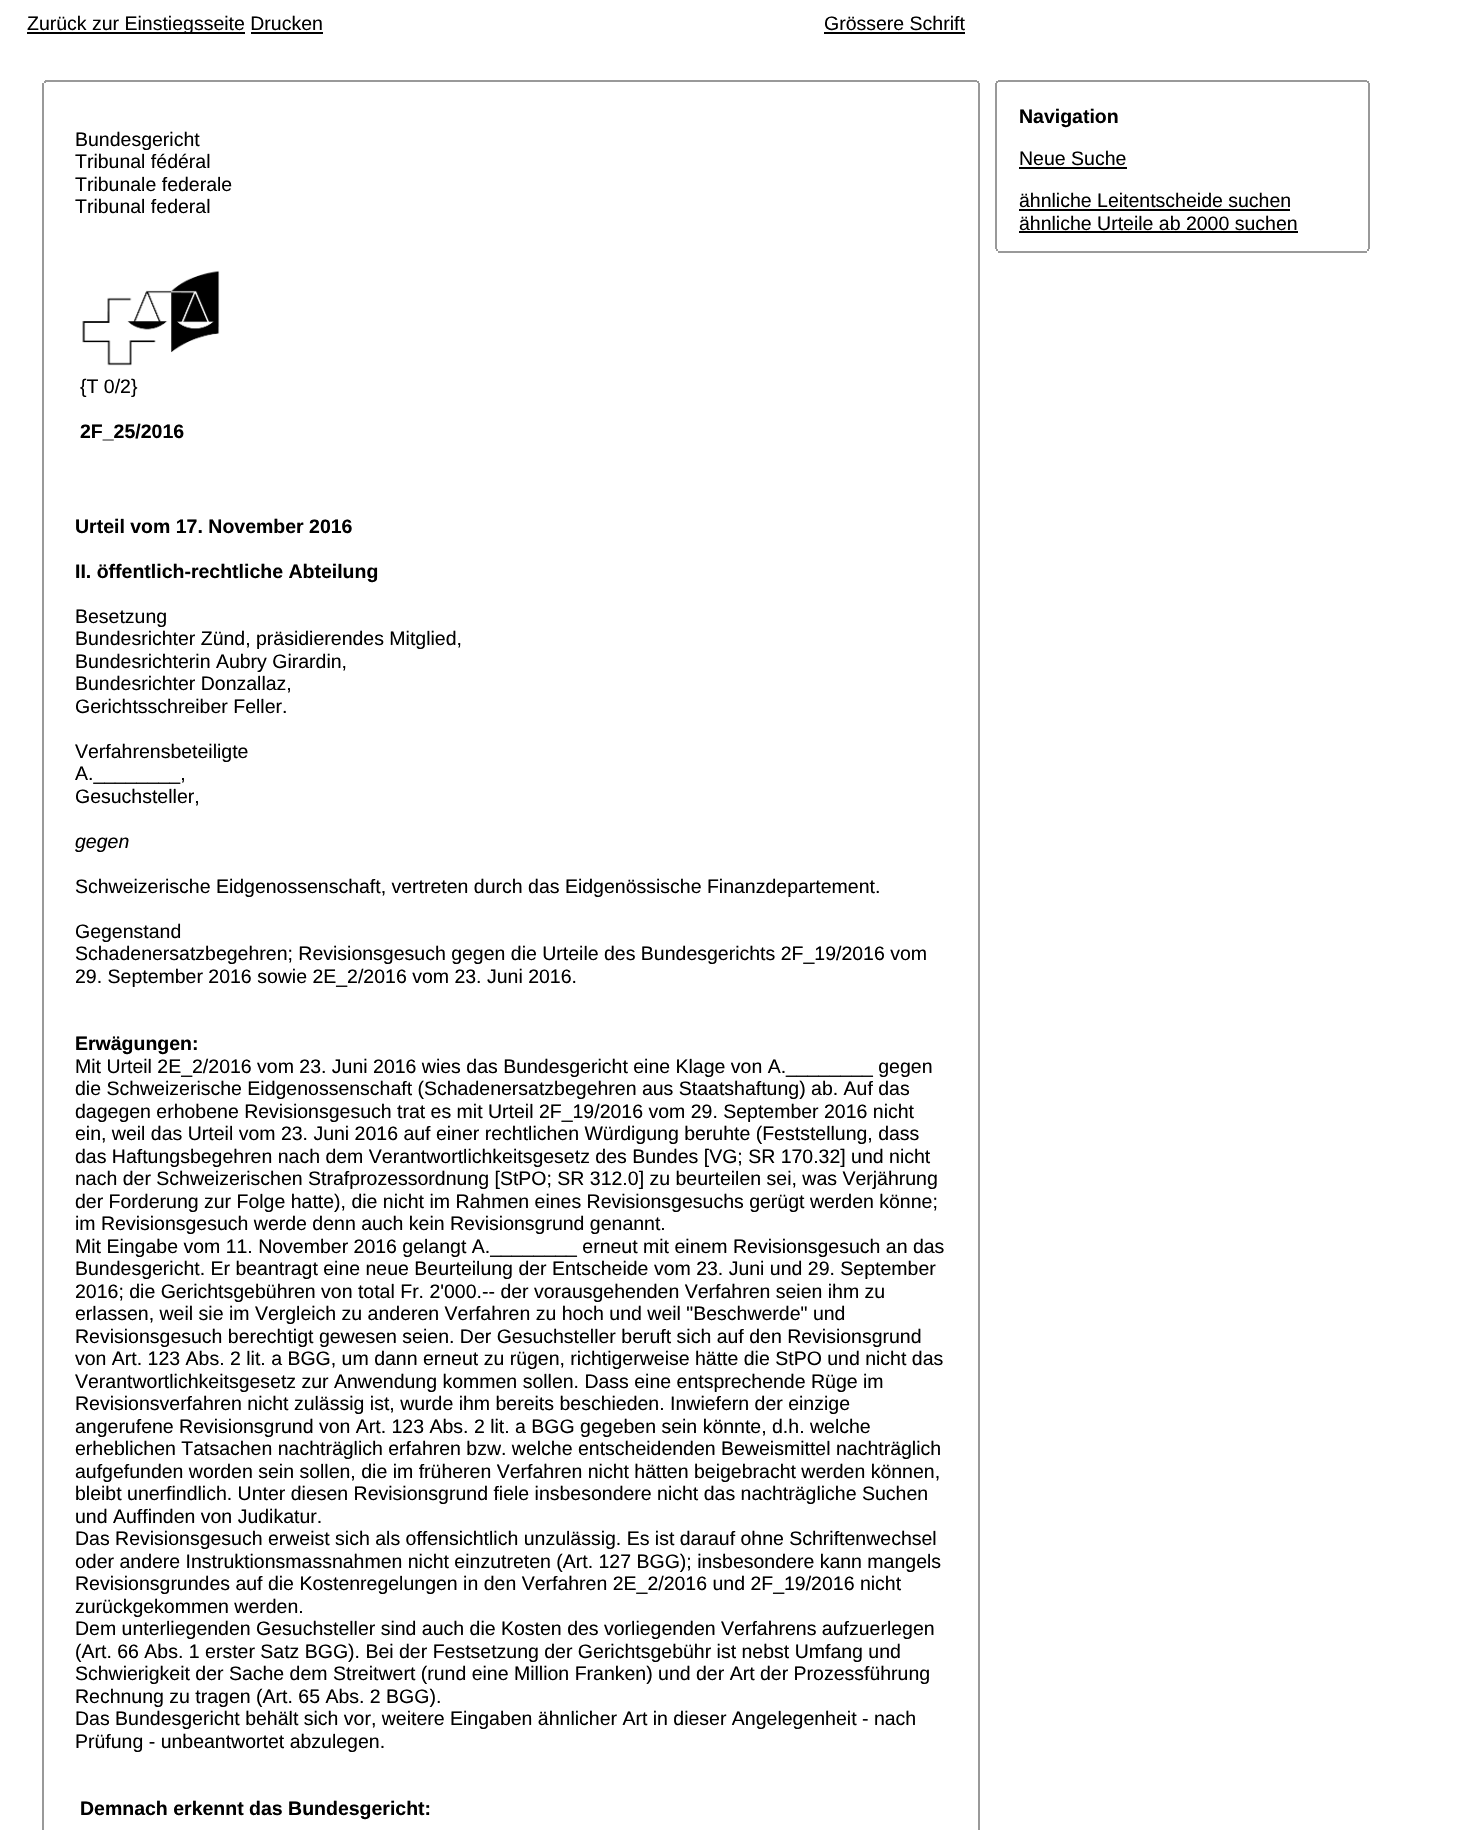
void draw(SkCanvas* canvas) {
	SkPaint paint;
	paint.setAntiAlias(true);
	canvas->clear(0xffffffff);
	paint.setColor(0xff000000);
	canvas->drawRect(SkRect::MakeXYWH(27, 32, 218, 2), paint);
	SkFont f1(fontMgr->matchFamilyStyle("Liberation Sans", SkFontStyle::Normal()), 19.5);
	f1.setSubpixel(true);
	canvas->drawString("Zurück zur Einstiegsseite Drucken", 27, 30, f1, paint);
	canvas->drawRect(SkRect::MakeXYWH(251, 32, 72, 2), paint);
	canvas->drawString("Grössere Schrift", 824, 30, f1, paint);
	canvas->drawRect(SkRect::MakeXYWH(824, 32, 141, 2), paint);
	paint.setColor(0xff999999);
	canvas->drawRect(SkRect::MakeXYWH(45, 80, 932, 2), paint);
	canvas->drawRect(SkRect::MakeXYWH(977, 81, 2, 2), paint);
	canvas->drawRect(SkRect::MakeXYWH(44, 81, 2, 2), paint);
	canvas->drawRect(SkRect::MakeXYWH(978, 83, 2, 1747), paint);
	canvas->drawRect(SkRect::MakeXYWH(42, 83, 2, 1747), paint);
	paint.setColor(0xff000000);
	canvas->drawString("Bundesgericht", 75, 146, f1, paint);
	canvas->drawString("Tribunal fédéral", 75, 168, f1, paint);
	canvas->drawString("Tribunale federale", 75, 191, f1, paint);
	canvas->drawString("Tribunal federal", 75, 213, f1, paint);
	canvas->drawImageRect(SkImages::DeferredFromEncodedData(SkData::MakeFromFileName("img1.png")), SkRect::MakeXYWH(82, 270, 138, 96), SkSamplingOptions());
	canvas->drawString("{T 0/2}", 80, 393, f1, paint);
	SkFont f2(fontMgr->matchFamilyStyle("Liberation Sans", SkFontStyle::Bold()), 19.5);
	f2.setSubpixel(true);
	canvas->drawString("2F_25/2016", 80, 438, f2, paint);
	canvas->drawString("Urteil vom 17. November 2016", 75, 533, f2, paint);
	canvas->drawString("II. öffentlich-rechtliche Abteilung", 75, 578, f2, paint);
	canvas->drawString("Besetzung", 75, 623, f1, paint);
	canvas->drawString("Bundesrichter Zünd, präsidierendes Mitglied,", 75, 645, f1, paint);
	canvas->drawString("Bundesrichterin Aubry Girardin,", 75, 668, f1, paint);
	canvas->drawString("Bundesrichter Donzallaz,", 75, 690, f1, paint);
	canvas->drawString("Gerichtsschreiber Feller.", 75, 713, f1, paint);
	canvas->drawString("Verfahrensbeteiligte", 75, 758, f1, paint);
	canvas->drawString("A.________,", 75, 780, f1, paint);
	canvas->drawString("Gesuchsteller,", 75, 803, f1, paint);
	SkFont f3(fontMgr->matchFamilyStyle("Liberation Sans", SkFontStyle::Italic()), 19.5);
	f3.setSubpixel(true);
	canvas->drawString("gegen", 75, 848, f3, paint);
	canvas->drawString("Schweizerische Eidgenossenschaft, vertreten durch das Eidgenössische Finanzdepartement.", 75, 893, f1, paint);
	canvas->drawString("Gegenstand", 75, 938, f1, paint);
	canvas->drawString("Schadenersatzbegehren; Revisionsgesuch gegen die Urteile des Bundesgerichts 2F_19/2016 vom", 75, 960, f1, paint);
	canvas->drawString("29. September 2016 sowie 2E_2/2016 vom 23. Juni 2016.", 75, 983, f1, paint);
	canvas->drawString("Erwägungen:", 75, 1050, f2, paint);
	canvas->drawString("Mit Urteil 2E_2/2016 vom 23. Juni 2016 wies das Bundesgericht eine Klage von A.________ gegen", 75, 1073, f1, paint);
	canvas->drawString("die Schweizerische Eidgenossenschaft (Schadenersatzbegehren aus Staatshaftung) ab. Auf das", 75, 1095, f1, paint);
	canvas->drawString("dagegen erhobene Revisionsgesuch trat es mit Urteil 2F_19/2016 vom 29. September 2016 nicht", 75, 1118, f1, paint);
	canvas->drawString("ein, weil das Urteil vom 23. Juni 2016 auf einer rechtlichen Würdigung beruhte (Feststellung, dass", 75, 1140, f1, paint);
	canvas->drawString("das Haftungsbegehren nach dem Verantwortlichkeitsgesetz des Bundes [VG; SR 170.32] und nicht", 75, 1163, f1, paint);
	canvas->drawString("nach der Schweizerischen Strafprozessordnung [StPO; SR 312.0] zu beurteilen sei, was Verjährung", 75, 1185, f1, paint);
	canvas->drawString("der Forderung zur Folge hatte), die nicht im Rahmen eines Revisionsgesuchs gerügt werden könne;", 75, 1208, f1, paint);
	canvas->drawString("im Revisionsgesuch werde denn auch kein Revisionsgrund genannt.", 75, 1230, f1, paint);
	canvas->drawString("Mit Eingabe vom 11. November 2016 gelangt A.________ erneut mit einem Revisionsgesuch an das", 75, 1253, f1, paint);
	canvas->drawString("Bundesgericht. Er beantragt eine neue Beurteilung der Entscheide vom 23. Juni und 29. September", 75, 1275, f1, paint);
	canvas->drawString("2016; die Gerichtsgebühren von total Fr. 2'000.-- der vorausgehenden Verfahren seien ihm zu", 75, 1298, f1, paint);
	canvas->drawString("erlassen, weil sie im Vergleich zu anderen Verfahren zu hoch und weil \"Beschwerde\" und", 75, 1320, f1, paint);
	canvas->drawString("Revisionsgesuch berechtigt gewesen seien. Der Gesuchsteller beruft sich auf den Revisionsgrund", 75, 1343, f1, paint);
	canvas->drawString("von Art. 123 Abs. 2 lit. a BGG, um dann erneut zu rügen, richtigerweise hätte die StPO und nicht das", 75, 1365, f1, paint);
	canvas->drawString("Verantwortlichkeitsgesetz zur Anwendung kommen sollen. Dass eine entsprechende Rüge im", 75, 1388, f1, paint);
	canvas->drawString("Revisionsverfahren nicht zulässig ist, wurde ihm bereits beschieden. Inwiefern der einzige", 75, 1410, f1, paint);
	canvas->drawString("angerufene Revisionsgrund von Art. 123 Abs. 2 lit. a BGG gegeben sein könnte, d.h. welche", 75, 1433, f1, paint);
	canvas->drawString("erheblichen Tatsachen nachträglich erfahren bzw. welche entscheidenden Beweismittel nachträglich", 75, 1455, f1, paint);
	canvas->drawString("aufgefunden worden sein sollen, die im früheren Verfahren nicht hätten beigebracht werden können,", 75, 1478, f1, paint);
	canvas->drawString("bleibt unerfindlich. Unter diesen Revisionsgrund fiele insbesondere nicht das nachträgliche Suchen", 75, 1500, f1, paint);
	canvas->drawString("und Auffinden von Judikatur.", 75, 1523, f1, paint);
	canvas->drawString("Das Revisionsgesuch erweist sich als offensichtlich unzulässig. Es ist darauf ohne Schriftenwechsel", 75, 1545, f1, paint);
	canvas->drawString("oder andere Instruktionsmassnahmen nicht einzutreten (Art. 127 BGG); insbesondere kann mangels", 75, 1568, f1, paint);
	canvas->drawString("Revisionsgrundes auf die Kostenregelungen in den Verfahren 2E_2/2016 und 2F_19/2016 nicht", 75, 1590, f1, paint);
	canvas->drawString("zurückgekommen werden.", 75, 1613, f1, paint);
	canvas->drawString("Dem unterliegenden Gesuchsteller sind auch die Kosten des vorliegenden Verfahrens aufzuerlegen", 75, 1635, f1, paint);
	canvas->drawString("(Art. 66 Abs. 1 erster Satz BGG). Bei der Festsetzung der Gerichtsgebühr ist nebst Umfang und", 75, 1658, f1, paint);
	canvas->drawString("Schwierigkeit der Sache dem Streitwert (rund eine Million Franken) und der Art der Prozessführung", 75, 1680, f1, paint);
	canvas->drawString("Rechnung zu tragen (Art. 65 Abs. 2 BGG).", 75, 1703, f1, paint);
	canvas->drawString("Das Bundesgericht behält sich vor, weitere Eingaben ähnlicher Art in dieser Angelegenheit - nach", 75, 1725, f1, paint);
	canvas->drawString("Prüfung - unbeantwortet abzulegen.", 75, 1748, f1, paint);
	canvas->drawString("Demnach erkennt das Bundesgericht:", 80, 1815, f2, paint);
	paint.setColor(0xff999999);
	canvas->drawRect(SkRect::MakeXYWH(998, 80, 369, 2), paint);
	canvas->drawRect(SkRect::MakeXYWH(1367, 81, 2, 2), paint);
	canvas->drawRect(SkRect::MakeXYWH(996, 81, 2, 2), paint);
	canvas->drawRect(SkRect::MakeXYWH(1368, 83, 2, 166), paint);
	canvas->drawRect(SkRect::MakeXYWH(995, 83, 2, 166), paint);
	paint.setColor(0xff000000);
	canvas->drawString("Navigation", 1019, 123, f2, paint);
	canvas->drawString("Neue Suche", 1019, 165, f1, paint);
	canvas->drawRect(SkRect::MakeXYWH(1019, 167, 108, 2), paint);
	canvas->drawString("ähnliche Leitentscheide suchen", 1019, 207, f1, paint);
	canvas->drawRect(SkRect::MakeXYWH(1019, 209, 271, 2), paint);
	canvas->drawString("ähnliche Urteile ab 2000 suchen", 1019, 230, f1, paint);
	canvas->drawRect(SkRect::MakeXYWH(1019, 231, 279, 2), paint);
	paint.setColor(0xff999999);
	canvas->drawRect(SkRect::MakeXYWH(1367, 249, 2, 2), paint);
	canvas->drawRect(SkRect::MakeXYWH(996, 249, 2, 2), paint);
	canvas->drawRect(SkRect::MakeXYWH(998, 251, 369, 2), paint);
}
